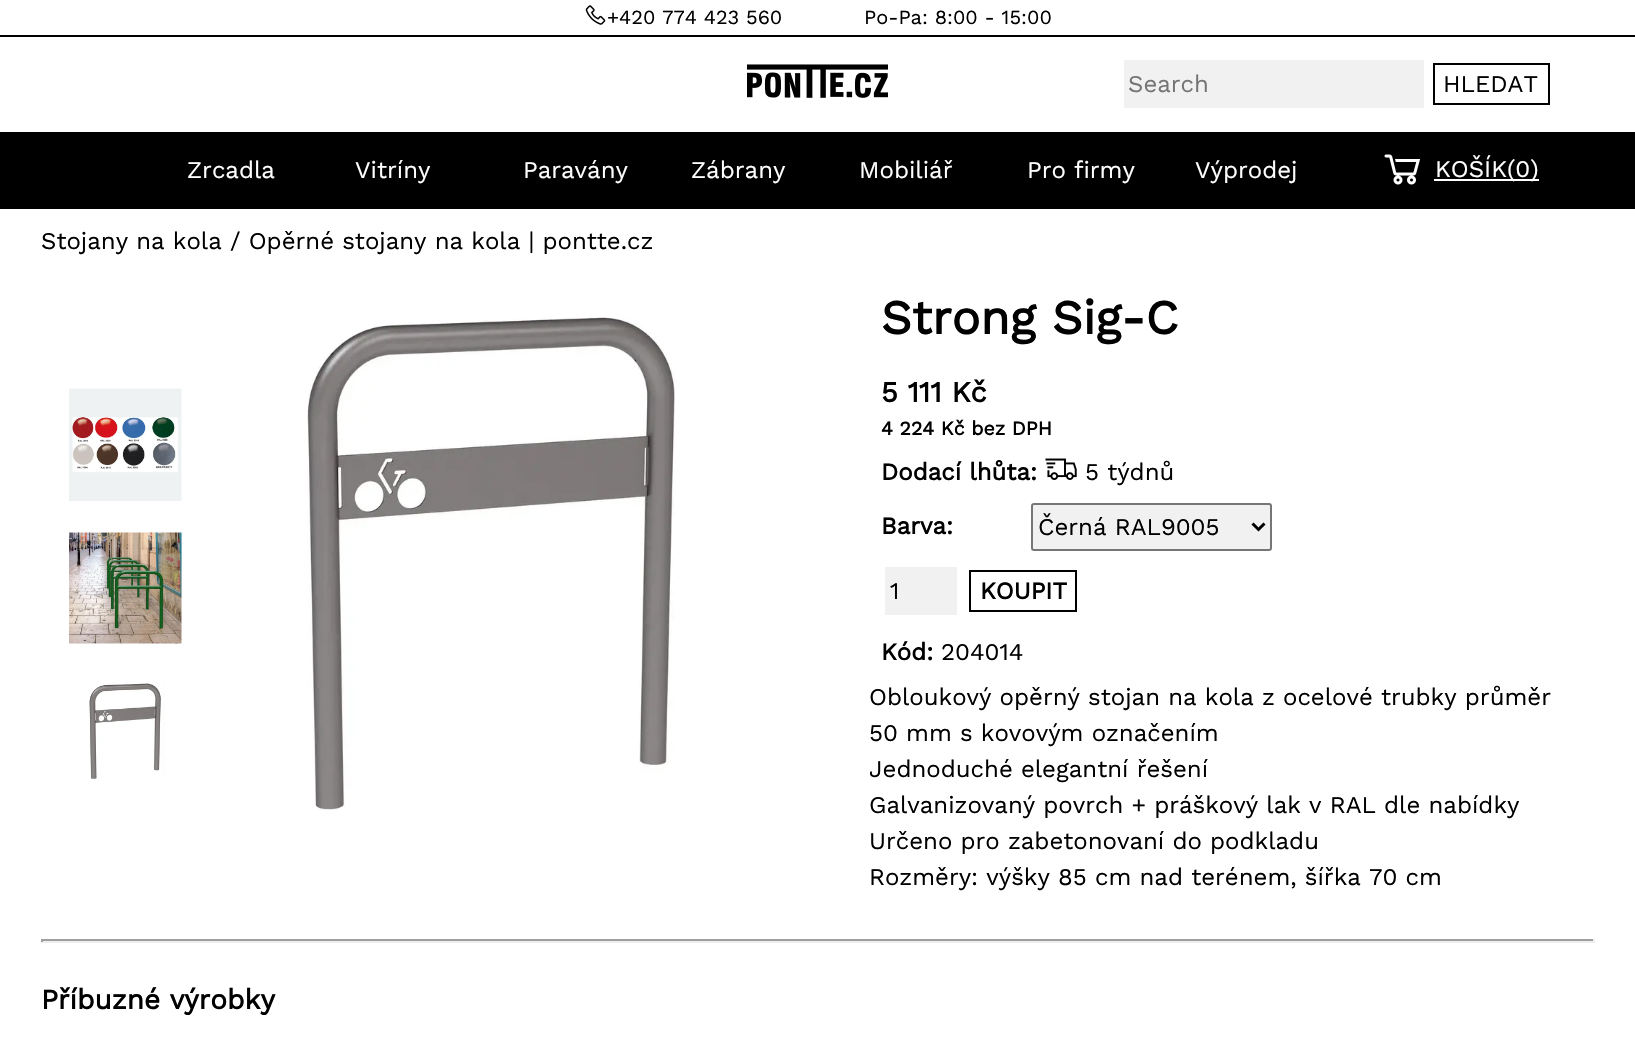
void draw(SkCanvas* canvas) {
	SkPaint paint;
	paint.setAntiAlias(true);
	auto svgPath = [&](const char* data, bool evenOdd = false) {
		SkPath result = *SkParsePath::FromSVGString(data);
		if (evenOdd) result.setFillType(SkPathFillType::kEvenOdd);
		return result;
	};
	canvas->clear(0xffffffff);
	paint.setColor(0xff000000);
	canvas->drawRect(SkRect::MakeXYWH(0, 35, 1635, 2), paint);
	canvas->drawImageRect(SkImages::DeferredFromEncodedData(SkData::MakeFromFileName("img1.png")), SkRect::MakeXYWH(585, 5, 21, 20), SkSamplingOptions());
	SkFont f1(fontMgr->matchFamilyStyle("Work Sans", SkFontStyle::Normal()), 20);
	f1.setSubpixel(true);
	canvas->drawString("+420 774 423 560", 607, 24, f1, paint);
	canvas->drawString("Po-Pa: 8:00 - 15:00", 864, 24, f1, paint);
	canvas->drawImageRect(SkImages::DeferredFromEncodedData(SkData::MakeFromFileName("img2.png")), SkRect::MakeXYWH(747, 64, 141, 34), SkSamplingOptions());
	paint.setColor(0xfff1f1f1);
	canvas->drawRect(SkRect::MakeXYWH(1124, 60, 300, 48), paint);
	SkFont f2(fontMgr->matchFamilyStyle("Work Sans", SkFontStyle::Normal()), 24);
	f2.setSubpixel(true);
	paint.setColor(0xff757575);
	canvas->drawString("Search", 1128, 92, f2, paint);
	paint.setStroke(true);
	paint.setStrokeWidth(2);
	paint.setColor(0xff000000);
	canvas->drawRect(SkRect::MakeXYWH(1434, 64, 115, 40), paint);
	paint.setStroke(false);
	canvas->drawString("HLEDAT", 1443, 92, f2, paint);
	canvas->drawRect(SkRect::MakeXYWH(0, 132, 1635, 77), paint);
	paint.setColor(0xffffffff);
	canvas->drawString("Zrcadla", 187, 178, f2, paint);
	canvas->drawString("Vitríny", 355, 178, f2, paint);
	canvas->drawString("Paravány", 523, 178, f2, paint);
	canvas->drawString("Zábrany", 691, 178, f2, paint);
	canvas->drawString("Mobiliář", 859, 178, f2, paint);
	canvas->drawString("Pro firmy", 1027, 178, f2, paint);
	canvas->drawString("Výprodej", 1195, 178, f2, paint);
	canvas->drawImageRect(SkImages::DeferredFromEncodedData(SkData::MakeFromFileName("img3.png")), SkRect::MakeXYWH(1384, 154, 37, 31), SkSamplingOptions());
	canvas->drawRect(SkRect::MakeXYWH(1434, 179, 105, 2), paint);
	canvas->drawString("KOŠÍK(0)", 1435, 177, f2, paint);
	paint.setColor(0xff000000);
	canvas->drawString("Stojany na kola / Opěrné stojany na kola | pontte.cz", 41, 249, f2, paint);
	canvas->drawImageRect(SkImages::DeferredFromEncodedData(SkData::MakeFromFileName("img4.png")), SkRect::MakeXYWH(69, 388, 113, 113), SkSamplingOptions());
	canvas->drawImageRect(SkImages::DeferredFromEncodedData(SkData::MakeFromFileName("img5.png")), SkRect::MakeXYWH(69, 532, 113, 112), SkSamplingOptions());
	canvas->drawImageRect(SkImages::DeferredFromEncodedData(SkData::MakeFromFileName("img6.png")), SkRect::MakeXYWH(89, 683, 76, 96), SkSamplingOptions());
	canvas->drawImageRect(SkImages::DeferredFromEncodedData(SkData::MakeFromFileName("img7.png")), SkRect::MakeXYWH(307, 317, 368, 493), SkSamplingOptions());
	SkFont f3(fontMgr->matchFamilyStyle("Work Sans", SkFontStyle::Bold()), 48);
	f3.setSubpixel(true);
	canvas->drawString("Strong Sig-C", 881, 334, f3, paint);
	SkFont f4(fontMgr->matchFamilyStyle("Work Sans", SkFontStyle::Bold()), 29);
	f4.setSubpixel(true);
	canvas->drawString("5 111 Kč", 881, 402, f4, paint);
	SkFont f5(fontMgr->matchFamilyStyle("Work Sans", SkFontStyle::Bold()), 19.5);
	f5.setSubpixel(true);
	canvas->drawString("4 224 Kč bez DPH", 881, 435, f5, paint);
	SkFont f6(fontMgr->matchFamilyStyle("Work Sans", SkFontStyle::Bold()), 24);
	f6.setSubpixel(true);
	canvas->drawString("Dodací lhůta:", 881, 480, f6, paint);
	canvas->drawImageRect(SkImages::DeferredFromEncodedData(SkData::MakeFromFileName("img8.png")), SkRect::MakeXYWH(1045, 458, 32, 22), SkSamplingOptions());
	canvas->drawString("5 týdnů", 1085, 480, f2, paint);
	canvas->drawString("Barva:", 881, 534, f6, paint);
	paint.setColor(0xfff1f1f1);
	canvas->drawRoundRect(SkRect::MakeXYWH(1032, 504, 239, 46), 2, 2, paint);
	paint.setStroke(true);
	paint.setColor(0xff767676);
	canvas->drawRoundRect(SkRect::MakeXYWH(1032, 504, 239, 46), 2, 2, paint);
	paint.setStrokeWidth(3);
	paint.setColor(0xff000000);
	canvas->drawPath(svgPath("M1252.5 523.5L1258.5 529.5L1264.5 523.5"), paint);
	paint.setStroke(false);
	canvas->drawString("Černá RAL9005", 1038, 535, f2, paint);
	paint.setColor(0xfff1f1f1);
	canvas->drawRect(SkRect::MakeXYWH(885, 567, 72, 48), paint);
	paint.setColor(0xff000000);
	canvas->drawString("1", 890, 599, f2, paint);
	paint.setStroke(true);
	paint.setStrokeWidth(2);
	canvas->drawRect(SkRect::MakeXYWH(970, 571, 106, 40), paint);
	paint.setStroke(false);
	canvas->drawString("KOUPIT", 980, 599, f6, paint);
	canvas->drawString("Kód:", 881, 660, f6, paint);
	canvas->drawString("204014", 941, 660, f2, paint);
	canvas->drawString("Obloukový opěrný stojan na kola z ocelové trubky průměr", 869, 705, f2, paint);
	canvas->drawString("50 mm s kovovým označením", 869, 741, f2, paint);
	canvas->drawString("Jednoduché elegantní řešení", 869, 777, f2, paint);
	canvas->drawString("Galvanizovaný povrch + práškový lak v RAL dle nabídky", 869, 813, f2, paint);
	canvas->drawString("Určeno pro zabetonovaní do podkladu", 869, 849, f2, paint);
	canvas->drawString("Rozměry: výšky 85 cm nad terénem, šířka 70 cm", 869, 885, f2, paint);
	paint.setColor(0xff9f9f9f);
	canvas->drawRect(SkRect::MakeXYWH(41, 939, 1554, 2), paint);
	paint.setColor(0xffeeeeee);
	canvas->drawRect(SkRect::MakeXYWH(1593, 939, 2, 3), paint);
	canvas->drawRect(SkRect::MakeXYWH(41, 941, 1554, 2), paint);
	paint.setColor(0xff9f9f9f);
	canvas->drawRect(SkRect::MakeXYWH(41, 939, 2, 3), paint);
	SkFont f7(fontMgr->matchFamilyStyle("Work Sans", SkFontStyle::Bold()), 28);
	f7.setSubpixel(true);
	paint.setColor(0xff000000);
	canvas->drawString("Příbuzné výrobky", 41, 1009, f7, paint);
}
